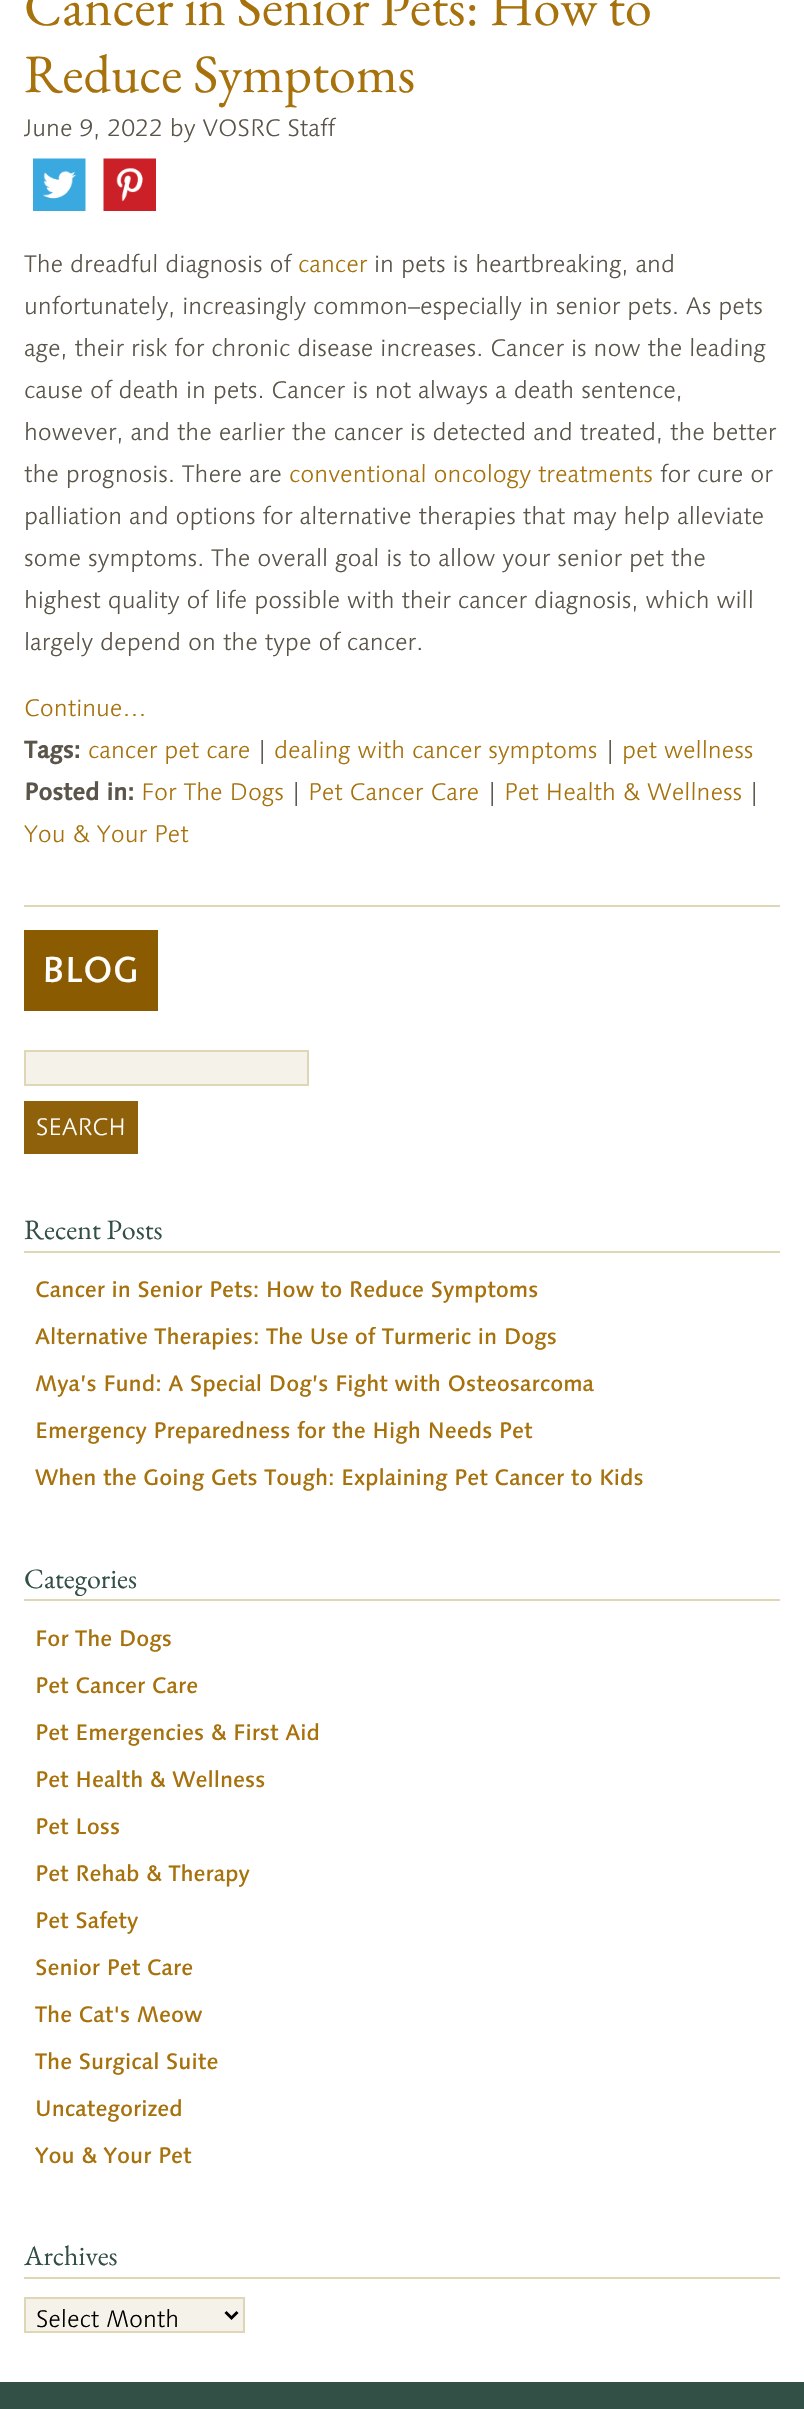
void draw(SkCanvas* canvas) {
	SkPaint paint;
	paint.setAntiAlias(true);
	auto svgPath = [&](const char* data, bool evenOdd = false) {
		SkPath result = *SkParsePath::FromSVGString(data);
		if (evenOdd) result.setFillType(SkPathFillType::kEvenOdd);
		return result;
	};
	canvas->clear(0xffffffff);
	SkFont f1(fontMgr->matchFamilyStyle("EB Garamond", SkFontStyle::Normal()), 54);
	f1.setSubpixel(true);
	paint.setColor(0xffa7710c);
	canvas->drawString("Cancer in Senior Pets: How to", 24, 25, f1, paint);
	canvas->drawString("Reduce Symptoms", 24, 92, f1, paint);
	SkFont f2(fontMgr->matchFamilyStyle("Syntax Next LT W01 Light", SkFontStyle(300, SkFontStyle::kNormal_Width, SkFontStyle::kUpright_Slant)), 24);
	f2.setSubpixel(true);
	paint.setColor(0xff5a5449);
	canvas->drawString("June 9, 2022 by VOSRC Staff", 24, 136, f2, paint);
	canvas->drawImageRect(SkImages::DeferredFromEncodedData(SkData::MakeFromFileName("img1.png")), SkRect::MakeXYWH(33, 158, 53, 53), SkSamplingOptions());
	canvas->drawImageRect(SkImages::DeferredFromEncodedData(SkData::MakeFromFileName("img2.png")), SkRect::MakeXYWH(103, 158, 53, 53), SkSamplingOptions());
	canvas->drawString("The dreadful diagnosis of", 24, 272, f2, paint);
	paint.setColor(0xffa7710c);
	canvas->drawString("cancer", 298, 272, f2, paint);
	paint.setColor(0xff5a5449);
	canvas->drawString("in pets is heartbreaking, and", 374, 272, f2, paint);
	canvas->drawString("unfortunately, increasingly common–especially in senior pets. As pets", 24, 314, f2, paint);
	canvas->drawString("age, their risk for chronic disease increases. Cancer is now the leading", 24, 356, f2, paint);
	canvas->drawString("cause of death in pets. Cancer is not always a death sentence,", 24, 398, f2, paint);
	canvas->drawString("however, and the earlier the cancer is detected and treated, the better", 24, 440, f2, paint);
	canvas->drawString("the prognosis. There are", 24, 482, f2, paint);
	paint.setColor(0xffa7710c);
	canvas->drawString("conventional oncology treatments", 289, 482, f2, paint);
	paint.setColor(0xff5a5449);
	canvas->drawString("for cure or", 660, 482, f2, paint);
	canvas->drawString("palliation and options for alternative therapies that may help alleviate", 24, 524, f2, paint);
	canvas->drawString("some symptoms. The overall goal is to allow your senior pet the", 24, 566, f2, paint);
	canvas->drawString("highest quality of life possible with their cancer diagnosis, which will", 24, 608, f2, paint);
	canvas->drawString("largely depend on the type of cancer.", 24, 650, f2, paint);
	paint.setColor(0xffa7710c);
	canvas->drawString("Continue…", 24, 716, f2, paint);
	SkFont f3(fontMgr->matchFamilyStyle("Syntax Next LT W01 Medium", SkFontStyle::Bold()), 24);
	f3.setSubpixel(true);
	paint.setColor(0xff5a5449);
	canvas->drawString("Tags:", 24, 758, f3, paint);
	paint.setColor(0xffa7710c);
	canvas->drawString("cancer pet care", 88, 758, f2, paint);
	paint.setColor(0xff5a5449);
	canvas->drawString("|", 257, 758, f2, paint);
	paint.setColor(0xffa7710c);
	canvas->drawString("dealing with cancer symptoms", 274, 758, f2, paint);
	paint.setColor(0xff5a5449);
	canvas->drawString("|", 605, 758, f2, paint);
	paint.setColor(0xffa7710c);
	canvas->drawString("pet wellness", 622, 758, f2, paint);
	paint.setColor(0xff5a5449);
	canvas->drawString("Posted in:", 24, 800, f3, paint);
	paint.setColor(0xffa7710c);
	canvas->drawString("For The Dogs", 141, 800, f2, paint);
	paint.setColor(0xff5a5449);
	canvas->drawString("|", 291, 800, f2, paint);
	paint.setColor(0xffa7710c);
	canvas->drawString("Pet Cancer Care", 308, 800, f2, paint);
	paint.setColor(0xff5a5449);
	canvas->drawString("|", 487, 800, f2, paint);
	paint.setColor(0xffa7710c);
	canvas->drawString("Pet Health & Wellness", 504, 800, f2, paint);
	paint.setColor(0xff5a5449);
	canvas->drawString("|", 749, 800, f2, paint);
	paint.setColor(0xffa7710c);
	canvas->drawString("You & Your Pet", 24, 842, f2, paint);
	paint.setColor(0xffded6b4);
	canvas->drawRect(SkRect::MakeXYWH(24, 905, 756, 2), paint);
	paint.setColor(0xff8a5b00);
	canvas->drawRect(SkRect::MakeXYWH(24, 930, 134, 81), paint);
	SkFont f4(fontMgr->matchFamilyStyle("Syntax Next LT W01 Medium", SkFontStyle(500, SkFontStyle::kNormal_Width, SkFontStyle::kUpright_Slant)), 36);
	f4.setSubpixel(true);
	paint.setColor(0xffffffff);
	canvas->drawString("BLOG", 42, 982, f4, paint);
	paint.setColor(0xfff5f3e9);
	canvas->drawRect(SkRect::MakeXYWH(25, 1051, 283, 34), paint);
	paint.setStroke(true);
	paint.setStrokeWidth(2);
	paint.setColor(0xffded6b4);
	canvas->drawRect(SkRect::MakeXYWH(25, 1051, 283, 34), paint);
	paint.setStroke(false);
	paint.setColor(0xff8f610a);
	canvas->drawRect(SkRect::MakeXYWH(24, 1101, 114, 53), paint);
	paint.setColor(0xffffffff);
	canvas->drawString("SEARCH", 36, 1135, f2, paint);
	paint.setColor(0xffded6b4);
	canvas->drawRect(SkRect::MakeXYWH(24, 1251, 756, 2), paint);
	SkFont f5(fontMgr->matchFamilyStyle("EB Garamond", SkFontStyle::Normal()), 28);
	f5.setSubpixel(true);
	paint.setColor(0xff325046);
	canvas->drawString("Recent Posts", 24, 1239, f5, paint);
	SkFont f6(fontMgr->matchFamilyStyle("Syntax Next LT W01 Medium", SkFontStyle(500, SkFontStyle::kNormal_Width, SkFontStyle::kUpright_Slant)), 22.4);
	f6.setSubpixel(true);
	paint.setColor(0xffa7710c);
	canvas->drawString("Cancer in Senior Pets: How to Reduce Symptoms", 35, 1297, f6, paint);
	canvas->drawString("Alternative Therapies: The Use of Turmeric in Dogs", 35, 1344, f6, paint);
	canvas->drawString("Mya’s Fund: A Special Dog’s Fight with Osteosarcoma", 35, 1391, f6, paint);
	canvas->drawString("Emergency Preparedness for the High Needs Pet", 35, 1438, f6, paint);
	canvas->drawString("When the Going Gets Tough: Explaining Pet Cancer to Kids", 35, 1485, f6, paint);
	paint.setColor(0xffded6b4);
	canvas->drawRect(SkRect::MakeXYWH(24, 1599, 756, 2), paint);
	paint.setColor(0xff325046);
	canvas->drawString("Categories", 24, 1588, f5, paint);
	paint.setColor(0xffa7710c);
	canvas->drawString("For The Dogs", 35, 1646, f6, paint);
	canvas->drawString("Pet Cancer Care", 35, 1693, f6, paint);
	canvas->drawString("Pet Emergencies & First Aid", 35, 1740, f6, paint);
	canvas->drawString("Pet Health & Wellness", 35, 1787, f6, paint);
	canvas->drawString("Pet Loss", 35, 1834, f6, paint);
	canvas->drawString("Pet Rehab & Therapy", 35, 1881, f6, paint);
	canvas->drawString("Pet Safety", 35, 1928, f6, paint);
	canvas->drawString("Senior Pet Care", 35, 1975, f6, paint);
	canvas->drawString("The Cat's Meow", 35, 2022, f6, paint);
	canvas->drawString("The Surgical Suite", 35, 2069, f6, paint);
	canvas->drawString("Uncategorized", 35, 2116, f6, paint);
	canvas->drawString("You & Your Pet", 35, 2163, f6, paint);
	paint.setColor(0xffded6b4);
	canvas->drawRect(SkRect::MakeXYWH(24, 2277, 756, 2), paint);
	paint.setColor(0xff325046);
	canvas->drawString("Archives", 24, 2265, f5, paint);
	paint.setColor(0xfff5f3e9);
	canvas->drawRect(SkRect::MakeXYWH(25, 2298, 219, 34), paint);
	paint.setStroke(true);
	paint.setColor(0xffded6b4);
	canvas->drawRect(SkRect::MakeXYWH(25, 2298, 219, 34), paint);
	paint.setStrokeWidth(3);
	paint.setColor(0xff000000);
	canvas->drawPath(svgPath("M225.5 2312L231.5 2318L237.5 2312"), paint);
	paint.setStroke(false);
	canvas->drawString("Select Month", 36, 2327, f2, paint);
	paint.setColor(0xff325046);
	canvas->drawRect(SkRect::MakeXYWH(0, 2382, 804, 27), paint);
}
